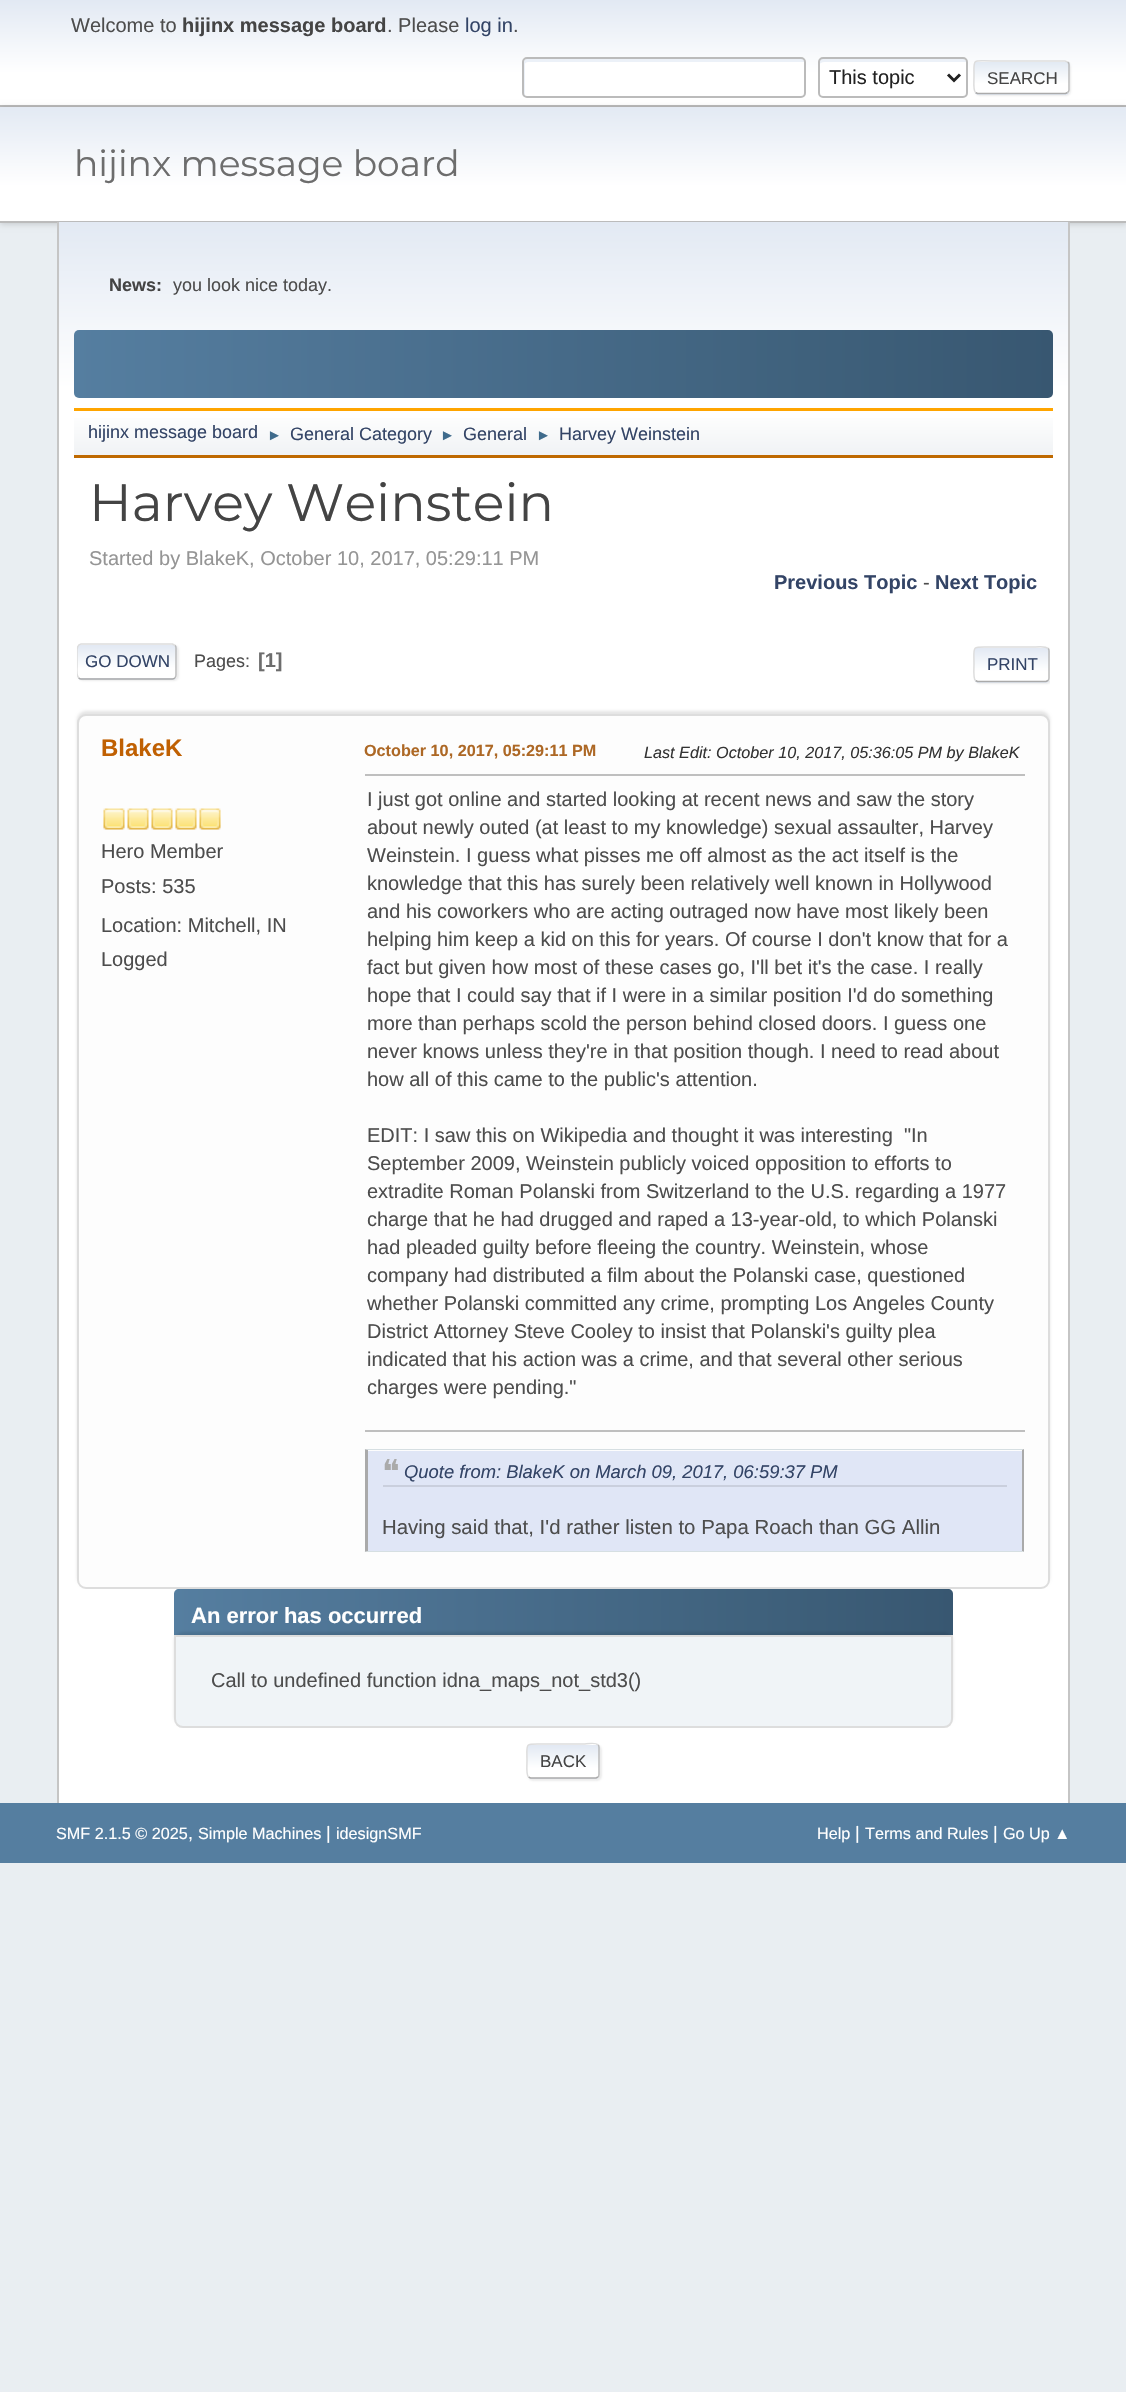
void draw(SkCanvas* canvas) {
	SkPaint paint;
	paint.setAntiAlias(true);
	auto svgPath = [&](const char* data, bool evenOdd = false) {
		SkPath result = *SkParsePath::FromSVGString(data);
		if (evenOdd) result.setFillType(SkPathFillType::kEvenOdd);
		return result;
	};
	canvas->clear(0xffe9eef2);
	{
		const SkColor colors[] = {0xffe2e9f3, 0xffffffff};
		const float stops[] = {0, 0.7};
		const SkPoint ends[] = {{563, 0}, {563, 105}};
		paint.setShader(SkGradientShader::MakeLinear(ends, colors, stops, 2, SkTileMode::kClamp));
		paint.setAlpha(255);
	}
	canvas->drawRect(SkRect::MakeXYWH(0, 0, 1126, 105), paint);
	paint.setShader(nullptr);
	paint.setColor(0xffbbbbbb);
	canvas->drawRect(SkRect::MakeXYWH(0, 105, 1126, 2), paint);
	SkFont f1(fontMgr->matchFamilyStyle("Liberation Sans", SkFontStyle::Normal()), 20);
	f1.setSubpixel(true);
	paint.setColor(0xff4d4d4d);
	canvas->drawString("Welcome to", 71, 32, f1, paint);
	SkFont f2(fontMgr->matchFamilyStyle("Liberation Sans", SkFontStyle::Bold()), 20);
	f2.setSubpixel(true);
	paint.setColor(0xff444444);
	canvas->drawString("hijinx message board", 182, 32, f2, paint);
	paint.setColor(0xff4d4d4d);
	canvas->drawString(". Please", 387, 32, f1, paint);
	paint.setColor(0xff334466);
	canvas->drawString("log in", 465, 32, f1, paint);
	paint.setColor(0xff4d4d4d);
	canvas->drawString(".", 513, 32, f1, paint);
	paint.setColor(0xffffffff);
	canvas->drawRoundRect(SkRect::MakeXYWH(522, 57, 284, 41), 5, 5, paint);
	paint.setColor(0xffecf1f8);
	canvas->drawPath(svgPath("M528 62H804C804 60 803 59 801 59H527C525 59 524 60 524 62V93C524 94 524 95 525 95V64C525 63 526 62 528 62Z"), paint);
	paint.setStroke(true);
	paint.setStrokeWidth(2);
	paint.setColor(0xffbbbbbb);
	canvas->drawRoundRect(SkRect::MakeXYWH(523, 58, 282, 39), 4, 4, paint);
	paint.setStroke(false);
	paint.setColor(0xffffffff);
	canvas->drawRoundRect(SkRect::MakeXYWH(818, 57, 150, 41), 5, 5, paint);
	paint.setColor(0xffecf1f8);
	canvas->drawPath(svgPath("M824 62H966C966 60 965 59 963 59H822C820 59 819 60 819 62V93C819 94 819 95 820 95V64C820 63 822 62 824 62Z"), paint);
	paint.setStroke(true);
	paint.setColor(0xffbbbbbb);
	canvas->drawRoundRect(SkRect::MakeXYWH(819, 58, 148, 39), 4, 4, paint);
	paint.setStrokeWidth(3);
	paint.setColor(0xff222222);
	canvas->drawPath(svgPath("M948 74.5L954 80.5L960 74.5"), paint);
	paint.setStroke(false);
	canvas->drawString("This topic", 829, 84, f1, paint);
	paint.setColor(0x91dddddd);
	paint.setMaskFilter(SkMaskFilter::MakeBlur(kNormal_SkBlurStyle, 1));
	canvas->drawRoundRect(SkRect::MakeXYWH(975, 62, 96, 34), 5, 5, paint);
	paint.setMaskFilter(nullptr);
	canvas->save();
	canvas->clipPath(svgPath("M979 60H1065C1068 60 1070 62 1070 65V90C1070 93 1068 95 1065 95H979C976 95 974 93 974 90V65C974 62 976 60 979 60Z"), true);
	{
		const SkColor colors[] = {0xffe2e9f3, 0xffffffff};
		const float stops[] = {0, 0.7};
		const SkPoint ends[] = {{1022, 30}, {1022, 62}};
		paint.setShader(SkGradientShader::MakeLinear(ends, colors, stops, 2, SkTileMode::kClamp));
		paint.setAlpha(255);
	}
	canvas->drawRect(SkRect::MakeXYWH(974, 60, 96, 2), paint);
	{
		const SkColor colors[] = {0xffe2e9f3, 0xffffffff};
		const float stops[] = {0, 0.7};
		const SkPoint ends[] = {{1022, 62}, {1022, 93}};
		paint.setShader(SkGradientShader::MakeLinear(ends, colors, stops, 2, SkTileMode::kClamp));
		paint.setAlpha(255);
	}
	canvas->drawRect(SkRect::MakeXYWH(974, 62, 96, 31), paint);
	{
		const SkColor colors[] = {0xffe2e9f3, 0xffffffff};
		const float stops[] = {0, 0.7};
		const SkPoint ends[] = {{1022, 93}, {1022, 125}};
		paint.setShader(SkGradientShader::MakeLinear(ends, colors, stops, 2, SkTileMode::kClamp));
		paint.setAlpha(255);
	}
	canvas->drawRect(SkRect::MakeXYWH(974, 93, 96, 2), paint);
	canvas->restore();
	paint.setStroke(true);
	paint.setStrokeWidth(1.5);
	paint.setShader(nullptr);
	paint.setColor(0xffbbbbbb);
	canvas->drawPath(svgPath("M1067.5 62C1068.5 62.5 1069 63.5 1069 64.5V90C1069 91 1068.5 92 1067.5 92.5"), paint);
	paint.setColor(0xffaaaaaa);
	canvas->drawPath(svgPath("M1067.5 92.5L1065.5 93.5H977.5L975.5 92.5"), paint);
	paint.setColor(0xffdddddd);
	canvas->drawPath(svgPath("M975.5 92.5C973 90.5 974 80.5 974 77C974 57.5 971.5 61 992.5 61H1065L1067.5 62"), paint);
	SkFont f3(fontMgr->matchFamilyStyle("Liberation Sans", SkFontStyle::Normal()), 17);
	f3.setSubpixel(true);
	paint.setStroke(false);
	paint.setColor(0xff444444);
	canvas->drawString("SEARCH", 987, 84, f3, paint);
	paint.setColor(0x29000000);
	paint.setMaskFilter(SkMaskFilter::MakeBlur(kNormal_SkBlurStyle, 3));
	canvas->drawRect(SkRect::MakeXYWH(0, 108, 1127, 116), paint);
	paint.setMaskFilter(nullptr);
	{
		const SkColor colors[] = {0xffe2e9f3, 0xffffffff};
		const float stops[] = {0, 0.7};
		const SkPoint ends[] = {{563, 106}, {563, 221}};
		paint.setShader(SkGradientShader::MakeLinear(ends, colors, stops, 2, SkTileMode::kClamp));
		paint.setAlpha(255);
	}
	canvas->drawRect(SkRect::MakeXYWH(0, 107, 1126, 114), paint);
	paint.setShader(nullptr);
	paint.setColor(0xffbbbbbb);
	canvas->drawRect(SkRect::MakeXYWH(0, 221, 1126, 2), paint);
	SkFont f4(fontMgr->matchFamilyStyle("Montserrat", SkFontStyle::Normal()), 36);
	f4.setSubpixel(true);
	paint.setColor(0xff6d6d6d);
	canvas->drawString("hijinx message board", 74, 176, f4, paint);
	paint.setColor(0xffffffff);
	canvas->drawRect(SkRect::MakeXYWH(59, 461, 1009, 1342), paint);
	paint.setColor(0xffc5c5c5);
	canvas->drawRect(SkRect::MakeXYWH(1068, 222, 2, 1581), paint);
	canvas->drawRect(SkRect::MakeXYWH(57, 222, 2, 1581), paint);
	{
		const SkColor colors[] = {0xffe2e9f3, 0xffffffff};
		const float stops[] = {0, 0.7};
		const SkPoint ends[] = {{563, 222}, {563, 461}};
		paint.setShader(SkGradientShader::MakeLinear(ends, colors, stops, 2, SkTileMode::kClamp));
		paint.setAlpha(255);
	}
	canvas->drawRect(SkRect::MakeXYWH(59, 222, 1009, 239), paint);
	SkFont f5(fontMgr->matchFamilyStyle("Liberation Sans", SkFontStyle::Bold()), 18);
	f5.setSubpixel(true);
	paint.setShader(nullptr);
	paint.setColor(0xff444444);
	canvas->drawString("News:", 109, 291, f5, paint);
	SkFont f6(fontMgr->matchFamilyStyle("Liberation Sans", SkFontStyle::Normal()), 18);
	f6.setSubpixel(true);
	paint.setColor(0xff4d4d4d);
	canvas->drawString("you look nice today.", 173, 291, f6, paint);
	{
		const SkColor colors[] = {0xff557ea0, 0xff4e7494, 0xff466a88, 0xff3f617c, 0xff385771};
		const float stops[] = {0, 0.25, 0.5, 0.75, 1};
		const SkPoint ends[] = {{74, 364}, {1053, 364}};
		paint.setShader(SkGradientShader::MakeLinear(ends, colors, stops, 5, SkTileMode::kClamp));
		paint.setAlpha(255);
	}
	canvas->drawRoundRect(SkRect::MakeXYWH(74, 330, 979, 68), 5, 5, paint);
	{
		const SkColor colors[] = {0xffffffff, 0xfff1f3f5};
		const float stops[] = {0, 0.95};
		const SkPoint ends[] = {{563, 411}, {563, 455}};
		paint.setShader(SkGradientShader::MakeLinear(ends, colors, stops, 2, SkTileMode::kClamp));
		paint.setAlpha(255);
	}
	canvas->drawRect(SkRect::MakeXYWH(74, 418, 979, 37), paint);
	paint.setShader(nullptr);
	paint.setColor(0xffffa500);
	canvas->drawRect(SkRect::MakeXYWH(74, 408, 979, 3), paint);
	paint.setColor(0xffbf6900);
	canvas->drawRect(SkRect::MakeXYWH(74, 455, 979, 3), paint);
	paint.setColor(0xff334466);
	canvas->drawString("hijinx message board", 88, 438, f6, paint);
	SkFont f7(fontMgr->matchFamilyStyle("Liberation Sans", SkFontStyle::Normal()), 15);
	f7.setSubpixel(true);
	paint.setColor(0xff3f6b8c);
	canvas->drawString("►", 267, 440, f7, paint);
	paint.setColor(0xff334466);
	canvas->drawString("General Category", 290, 440, f6, paint);
	paint.setColor(0xff3f6b8c);
	canvas->drawString("►", 440, 440, f7, paint);
	paint.setColor(0xff334466);
	canvas->drawString("General", 463, 440, f6, paint);
	paint.setColor(0xff3f6b8c);
	canvas->drawString("►", 536, 440, f7, paint);
	paint.setColor(0xff334466);
	canvas->drawString("Harvey Weinstein", 559, 440, f6, paint);
	SkFont f8(fontMgr->matchFamilyStyle("Montserrat", SkFontStyle::Normal()), 52.5);
	f8.setSubpixel(true);
	paint.setColor(0xff444444);
	canvas->drawString("Harvey Weinstein", 89, 521, f8, paint);
	paint.setColor(0xff959595);
	canvas->drawString("Started by BlakeK, October 10, 2017, 05:29:11 PM", 89, 565, f1, paint);
	paint.setColor(0xff334466);
	canvas->drawString("Previous Topic", 774, 589, f2, paint);
	paint.setColor(0xff4d4d4d);
	canvas->drawString("-", 923, 589, f1, paint);
	paint.setColor(0xff334466);
	canvas->drawString("Next Topic", 935, 589, f2, paint);
	paint.setColor(0x91dddddd);
	paint.setMaskFilter(SkMaskFilter::MakeBlur(kNormal_SkBlurStyle, 1));
	canvas->drawRoundRect(SkRect::MakeXYWH(78, 645, 101, 36), 5, 5, paint);
	paint.setMaskFilter(nullptr);
	canvas->save();
	canvas->clipPath(svgPath("M82 644H172C175 644 177 646 177 649V675C177 678 175 680 172 680H82C79 680 77 678 77 675V649C77 646 79 644 82 644Z"), true);
	{
		const SkColor colors[] = {0xffe2e9f3, 0xffffffff};
		const float stops[] = {0, 0.7};
		const SkPoint ends[] = {{127, 645}, {127, 678}};
		paint.setShader(SkGradientShader::MakeLinear(ends, colors, stops, 2, SkTileMode::kClamp));
		paint.setAlpha(255);
	}
	canvas->drawRect(SkRect::MakeXYWH(77, 645, 100, 33), paint);
	{
		const SkColor colors[] = {0xffe2e9f3, 0xffffffff};
		const float stops[] = {0, 0.7};
		const SkPoint ends[] = {{127, 678}, {127, 711}};
		paint.setShader(SkGradientShader::MakeLinear(ends, colors, stops, 2, SkTileMode::kClamp));
		paint.setAlpha(255);
	}
	canvas->drawRect(SkRect::MakeXYWH(77, 678, 100, 2), paint);
	canvas->restore();
	paint.setStroke(true);
	paint.setShader(nullptr);
	paint.setColor(0xffbbbbbb);
	canvas->drawPath(svgPath("M175 645.5C176 646 176 647 176 648V675C176 676 176 677 175 677.5"), paint);
	paint.setColor(0xffaaaaaa);
	canvas->drawPath(svgPath("M175 677.5C174.5 678.5 173.5 679 172.5 679H81C80 679 79 678.5 78.5 677.5"), paint);
	canvas->save();
	canvas->clipRect(SkRect::MakeXYWH(77, 633, 973, 63));
	paint.setColor(0xffdddddd);
	canvas->drawPath(svgPath("M78.5 677.5C76 675 77 669 77 666V652.5C77 649.5 76.5 644.5 81 644H172.5L175 645.5"), paint);
	canvas->restore();
	paint.setStroke(false);
	paint.setColor(0xff334466);
	canvas->drawString("GO DOWN", 85, 667, f3, paint);
	paint.setColor(0xff4d4d4d);
	canvas->drawString("Pages:", 194, 667, f6, paint);
	paint.setColor(0xff6d6d6d);
	canvas->drawString("[1]", 258, 667, f2, paint);
	canvas->save();
	canvas->clipRect(SkRect::MakeXYWH(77, 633, 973, 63));
	paint.setColor(0x91dddddd);
	paint.setMaskFilter(SkMaskFilter::MakeBlur(kNormal_SkBlurStyle, 1));
	canvas->drawRoundRect(SkRect::MakeXYWH(975, 648, 77, 36), 5, 5, paint);
	paint.setMaskFilter(nullptr);
	canvas->restore();
	paint.setColor(0xffffffff);
	canvas->drawRoundRect(SkRect::MakeXYWH(974, 647, 76, 36), 5, 5, paint);
	canvas->save();
	canvas->clipPath(svgPath("M979 647H1045C1048 647 1050 649 1050 652V678C1050 681 1048 683 1045 683H979C976 683 974 681 974 678V652C974 649 976 647 979 647Z"), true);
	{
		const SkColor colors[] = {0xffe2e9f3, 0xffffffff};
		const float stops[] = {0, 0.7};
		const SkPoint ends[] = {{1012, 648}, {1012, 681}};
		paint.setShader(SkGradientShader::MakeLinear(ends, colors, stops, 2, SkTileMode::kClamp));
		paint.setAlpha(255);
	}
	canvas->drawRect(SkRect::MakeXYWH(974, 648, 76, 33), paint);
	{
		const SkColor colors[] = {0xffe2e9f3, 0xffffffff};
		const float stops[] = {0, 0.7};
		const SkPoint ends[] = {{1012, 681}, {1012, 714}};
		paint.setShader(SkGradientShader::MakeLinear(ends, colors, stops, 2, SkTileMode::kClamp));
		paint.setAlpha(255);
	}
	canvas->drawRect(SkRect::MakeXYWH(974, 681, 76, 2), paint);
	canvas->restore();
	paint.setStroke(true);
	paint.setShader(nullptr);
	paint.setColor(0xffbbbbbb);
	canvas->drawPath(svgPath("M1048 648.5C1049 649 1049 650 1049 651V678C1049 679 1049 680 1048 680.5"), paint);
	paint.setColor(0xffaaaaaa);
	canvas->drawPath(svgPath("M1048 680.5L1046 681.5H977.5L975.5 680.5"), paint);
	paint.setColor(0xffdddddd);
	canvas->drawPath(svgPath("M975.5 680.5C973 678.5 974 667.5 974 664.5C974 645.5 971 647 989 647H1034C1035.5 647 1045.5 645.5 1048 648.5"), paint);
	paint.setStroke(false);
	paint.setColor(0xff334466);
	canvas->drawString("PRINT", 987, 670, f3, paint);
	paint.setColor(0x1a000000);
	paint.setMaskFilter(SkMaskFilter::MakeBlur(kNormal_SkBlurStyle, 1.5));
	canvas->drawRoundRect(SkRect::MakeXYWH(77, 711, 973, 875), 9, 9, paint);
	paint.setMaskFilter(nullptr);
	paint.setColor(0xfffdfdfd);
	canvas->drawRoundRect(SkRect::MakeXYWH(78, 715, 971, 873), 8, 8, paint);
	paint.setStroke(true);
	paint.setStrokeWidth(2);
	paint.setColor(0xffdddddd);
	canvas->drawRoundRect(SkRect::MakeXYWH(78, 715, 971, 873), 8, 8, paint);
	SkFont f9(fontMgr->matchFamilyStyle("Liberation Sans", SkFontStyle::Bold()), 24);
	f9.setSubpixel(true);
	paint.setStroke(false);
	paint.setColor(0xffc06002);
	canvas->drawString("BlakeK", 101, 756, f9, paint);
	canvas->drawImageRect(SkImages::DeferredFromEncodedData(SkData::MakeFromFileName("img1.png")), SkRect::MakeXYWH(103, 808, 22, 22), SkSamplingOptions());
	canvas->drawImageRect(SkImages::DeferredFromEncodedData(SkData::MakeFromFileName("img1.png")), SkRect::MakeXYWH(127, 808, 22, 22), SkSamplingOptions());
	canvas->drawImageRect(SkImages::DeferredFromEncodedData(SkData::MakeFromFileName("img1.png")), SkRect::MakeXYWH(151, 808, 22, 22), SkSamplingOptions());
	canvas->drawImageRect(SkImages::DeferredFromEncodedData(SkData::MakeFromFileName("img1.png")), SkRect::MakeXYWH(175, 808, 22, 22), SkSamplingOptions());
	canvas->drawImageRect(SkImages::DeferredFromEncodedData(SkData::MakeFromFileName("img1.png")), SkRect::MakeXYWH(199, 808, 22, 22), SkSamplingOptions());
	paint.setColor(0xff4d4d4d);
	canvas->drawString("Hero Member", 101, 858, f1, paint);
	canvas->drawString("Posts: 535", 101, 893, f1, paint);
	canvas->drawString("Location: Mitchell, IN", 101, 932, f1, paint);
	canvas->drawString("Logged", 101, 966, f1, paint);
	SkFont f10(fontMgr->matchFamilyStyle("Liberation Sans", SkFontStyle::Bold()), 16.2);
	f10.setSubpixel(true);
	paint.setColor(0xffad6825);
	canvas->drawString("October 10, 2017, 05:29:11 PM", 364, 756, f10, paint);
	SkFont f11(fontMgr->matchFamilyStyle("Liberation Sans", SkFontStyle::Italic()), 16.2);
	f11.setSubpixel(true);
	paint.setColor(0xff333333);
	canvas->drawString("Last Edit: October 10, 2017, 05:36:05 PM by BlakeK", 644, 758, f11, paint);
	paint.setColor(0xffbfbfbf);
	canvas->drawRect(SkRect::MakeXYWH(365, 774, 660, 2), paint);
	paint.setColor(0xff4d4d4d);
	canvas->drawString("I just got online and started looking at recent news and saw the story", 367, 806, f1, paint);
	canvas->drawString("about newly outed (at least to my knowledge) sexual assaulter, Harvey", 367, 834, f1, paint);
	canvas->drawString("Weinstein. I guess what pisses me off almost as the act itself is the", 367, 862, f1, paint);
	canvas->drawString("knowledge that this has surely been relatively well known in Hollywood", 367, 890, f1, paint);
	canvas->drawString("and his coworkers who are acting outraged now have most likely been", 367, 918, f1, paint);
	canvas->drawString("helping him keep a kid on this for years. Of course I don't know that for a", 367, 946, f1, paint);
	canvas->drawString("fact but given how most of these cases go, I'll bet it's the case. I really", 367, 974, f1, paint);
	canvas->drawString("hope that I could say that if I were in a similar position I'd do something", 367, 1002, f1, paint);
	canvas->drawString("more than perhaps scold the person behind closed doors. I guess one", 367, 1030, f1, paint);
	canvas->drawString("never knows unless they're in that position though. I need to read about", 367, 1058, f1, paint);
	canvas->drawString("how all of this came to the public's attention.", 367, 1086, f1, paint);
	canvas->drawString("EDIT: I saw this on Wikipedia and thought it was interesting  \"In", 367, 1142, f1, paint);
	canvas->drawString("September 2009, Weinstein publicly voiced opposition to efforts to", 367, 1170, f1, paint);
	canvas->drawString("extradite Roman Polanski from Switzerland to the U.S. regarding a 1977", 367, 1198, f1, paint);
	canvas->drawString("charge that he had drugged and raped a 13-year-old, to which Polanski", 367, 1226, f1, paint);
	canvas->drawString("had pleaded guilty before fleeing the country. Weinstein, whose", 367, 1254, f1, paint);
	canvas->drawString("company had distributed a film about the Polanski case, questioned", 367, 1282, f1, paint);
	canvas->drawString("whether Polanski committed any crime, prompting Los Angeles County", 367, 1310, f1, paint);
	canvas->drawString("District Attorney Steve Cooley to insist that Polanski's guilty plea", 367, 1338, f1, paint);
	canvas->drawString("indicated that his action was a crime, and that several other serious", 367, 1366, f1, paint);
	canvas->drawString("charges were pending.\"", 367, 1394, f1, paint);
	paint.setColor(0xffbfbfbf);
	canvas->drawRect(SkRect::MakeXYWH(365, 1430, 660, 2), paint);
	paint.setColor(0xffe0e6f6);
	canvas->drawRect(SkRect::MakeXYWH(368, 1451, 654, 100), paint);
	paint.setColor(0xffd6dfe2);
	canvas->drawPath(svgPath("M364 1449H1024L1022 1450H368Z"), paint);
	paint.setColor(0xffaaaaaa);
	canvas->drawPath(svgPath("M1024 1449V1552L1022 1551V1450Z"), paint);
	paint.setColor(0xffd6dfe2);
	canvas->drawPath(svgPath("M1024 1552H364L368 1551H1022Z"), paint);
	canvas->save();
	canvas->clipRect(SkRect::MakeXYWH(365, 1431, 660, 138));
	paint.setColor(0xffaaaaaa);
	canvas->drawPath(svgPath("M364 1552V1449L368 1450V1551Z"), paint);
	canvas->restore();
	paint.setColor(0xffcacfdd);
	canvas->drawRect(SkRect::MakeXYWH(383, 1485, 624, 2), paint);
	SkFont f12(fontMgr->matchFamilyStyle("DejaVu Sans", SkFontStyle::Normal()), 33);
	f12.setSubpixel(true);
	paint.setColor(0xffaaaaaa);
	canvas->drawString("❝", 382, 1483, f12, paint);
	SkFont f13(fontMgr->matchFamilyStyle("Liberation Sans", SkFontStyle::Italic()), 18.4);
	f13.setSubpixel(true);
	paint.setColor(0xff334466);
	canvas->drawString("Quote from: BlakeK on March 09, 2017, 06:59:37 PM", 404, 1478, f13, paint);
	SkFont f14(fontMgr->matchFamilyStyle("Liberation Sans", SkFontStyle::Normal()), 20.4);
	f14.setSubpixel(true);
	paint.setColor(0xff4d4d4d);
	canvas->drawString("Having said that, I'd rather listen to Papa Roach than GG Allin", 382, 1534, f14, paint);
	{
		const SkColor colors[] = {0xff557ea0, 0xff4e7494, 0xff466a88, 0xff3f617c, 0xff385771};
		const float stops[] = {0, 0.25, 0.5, 0.75, 1};
		const SkPoint ends[] = {{174, 1614}, {953, 1614}};
		paint.setShader(SkGradientShader::MakeLinear(ends, colors, stops, 5, SkTileMode::kClamp));
		paint.setAlpha(255);
	}
	canvas->drawPath(svgPath("M179 1589H948C951 1589 953 1591 953 1594V1641H174V1594C174 1591 176 1589 179 1589Z"), paint);
	SkFont f15(fontMgr->matchFamilyStyle("Liberation Sans", SkFontStyle::Bold()), 22);
	f15.setSubpixel(true);
	paint.setShader(nullptr);
	paint.setColor(0xffffffff);
	canvas->drawString("An error has occurred", 191, 1623, f15, paint);
	paint.setColor(0x1a000000);
	paint.setMaskFilter(SkMaskFilter::MakeBlur(kNormal_SkBlurStyle, 1.5));
	canvas->drawRoundRect(SkRect::MakeXYWH(174, 1632, 779, 93), 9, 9, paint);
	paint.setMaskFilter(nullptr);
	paint.setColor(0xfff0f4f7);
	canvas->drawPath(svgPath("M175 1636H952V1719C952 1723.5 948.5 1727 944 1727H183C178.5 1727 175 1723.5 175 1719Z"), paint);
	paint.setStroke(true);
	paint.setColor(0xffdddddd);
	canvas->drawPath(svgPath("M175 1636H952V1719C952 1723.5 948.5 1727 944 1727H183C178.5 1727 175 1723.5 175 1719Z"), paint);
	paint.setStroke(false);
	paint.setColor(0xff4d4d4d);
	canvas->drawString("Call to undefined function idna_maps_not_std3()", 211, 1687, f1, paint);
	paint.setColor(0x91dddddd);
	paint.setMaskFilter(SkMaskFilter::MakeBlur(kNormal_SkBlurStyle, 1));
	canvas->drawRoundRect(SkRect::MakeXYWH(528, 1745, 74, 36), 5, 5, paint);
	paint.setMaskFilter(nullptr);
	paint.setColor(0xffffffff);
	canvas->drawRoundRect(SkRect::MakeXYWH(527, 1743, 73, 36), 5, 5, paint);
	canvas->save();
	canvas->clipPath(svgPath("M532 1743H595C598 1743 600 1745 600 1748V1774C600 1777 598 1779 595 1779H532C529 1779 527 1777 527 1774V1748C527 1745 529 1743 532 1743Z"), true);
	{
		const SkColor colors[] = {0xffe2e9f3, 0xffffffff};
		const float stops[] = {0, 0.7};
		const SkPoint ends[] = {{563, 1745}, {563, 1778}};
		paint.setShader(SkGradientShader::MakeLinear(ends, colors, stops, 2, SkTileMode::kClamp));
		paint.setAlpha(255);
	}
	canvas->drawRect(SkRect::MakeXYWH(527, 1745, 73, 33), paint);
	{
		const SkColor colors[] = {0xffe2e9f3, 0xffffffff};
		const float stops[] = {0, 0.7};
		const SkPoint ends[] = {{563, 1778}, {563, 1811}};
		paint.setShader(SkGradientShader::MakeLinear(ends, colors, stops, 2, SkTileMode::kClamp));
		paint.setAlpha(255);
	}
	canvas->drawRect(SkRect::MakeXYWH(527, 1778, 73, 1), paint);
	canvas->restore();
	paint.setStroke(true);
	paint.setStrokeWidth(1.5);
	paint.setShader(nullptr);
	paint.setColor(0xffbbbbbb);
	canvas->drawPath(svgPath("M598 1745C599 1745.5 599 1746.5 599 1747.5V1774.5C599 1775.5 599 1776.5 598 1777"), paint);
	paint.setColor(0xffaaaaaa);
	canvas->drawPath(svgPath("M598 1777L596 1778H530.5L528.5 1777"), paint);
	paint.setColor(0xffdddddd);
	canvas->drawPath(svgPath("M528.5 1777C526 1775 527 1764 527 1761C527 1742.5 524 1744 542 1744H585C586 1744 595.5 1742 598 1745"), paint);
	paint.setStroke(false);
	paint.setColor(0xff444444);
	canvas->drawString("BACK", 540, 1767, f3, paint);
	paint.setColor(0xff557ea0);
	canvas->drawRect(SkRect::MakeXYWH(0, 1803, 1126, 60), paint);
	SkFont f16(fontMgr->matchFamilyStyle("Liberation Sans", SkFontStyle::Normal()), 16.2);
	f16.setSubpixel(true);
	paint.setColor(0xffffffff);
	canvas->drawString("SMF 2.1.5 © 2025", 56, 1839, f16, paint);
	canvas->drawString(",", 188, 1839, f6, paint);
	canvas->drawString("Simple Machines", 198, 1839, f16, paint);
	canvas->drawString("|", 326, 1839, f6, paint);
	canvas->drawString("idesignSMF", 336, 1839, f16, paint);
	canvas->drawString("Help", 817, 1839, f16, paint);
	canvas->drawString("|", 855, 1839, f6, paint);
	canvas->drawString("Terms and Rules", 865, 1839, f16, paint);
	canvas->drawString("|", 993, 1839, f6, paint);
	canvas->drawString("Go Up ▲", 1003, 1839, f16, paint);
}
